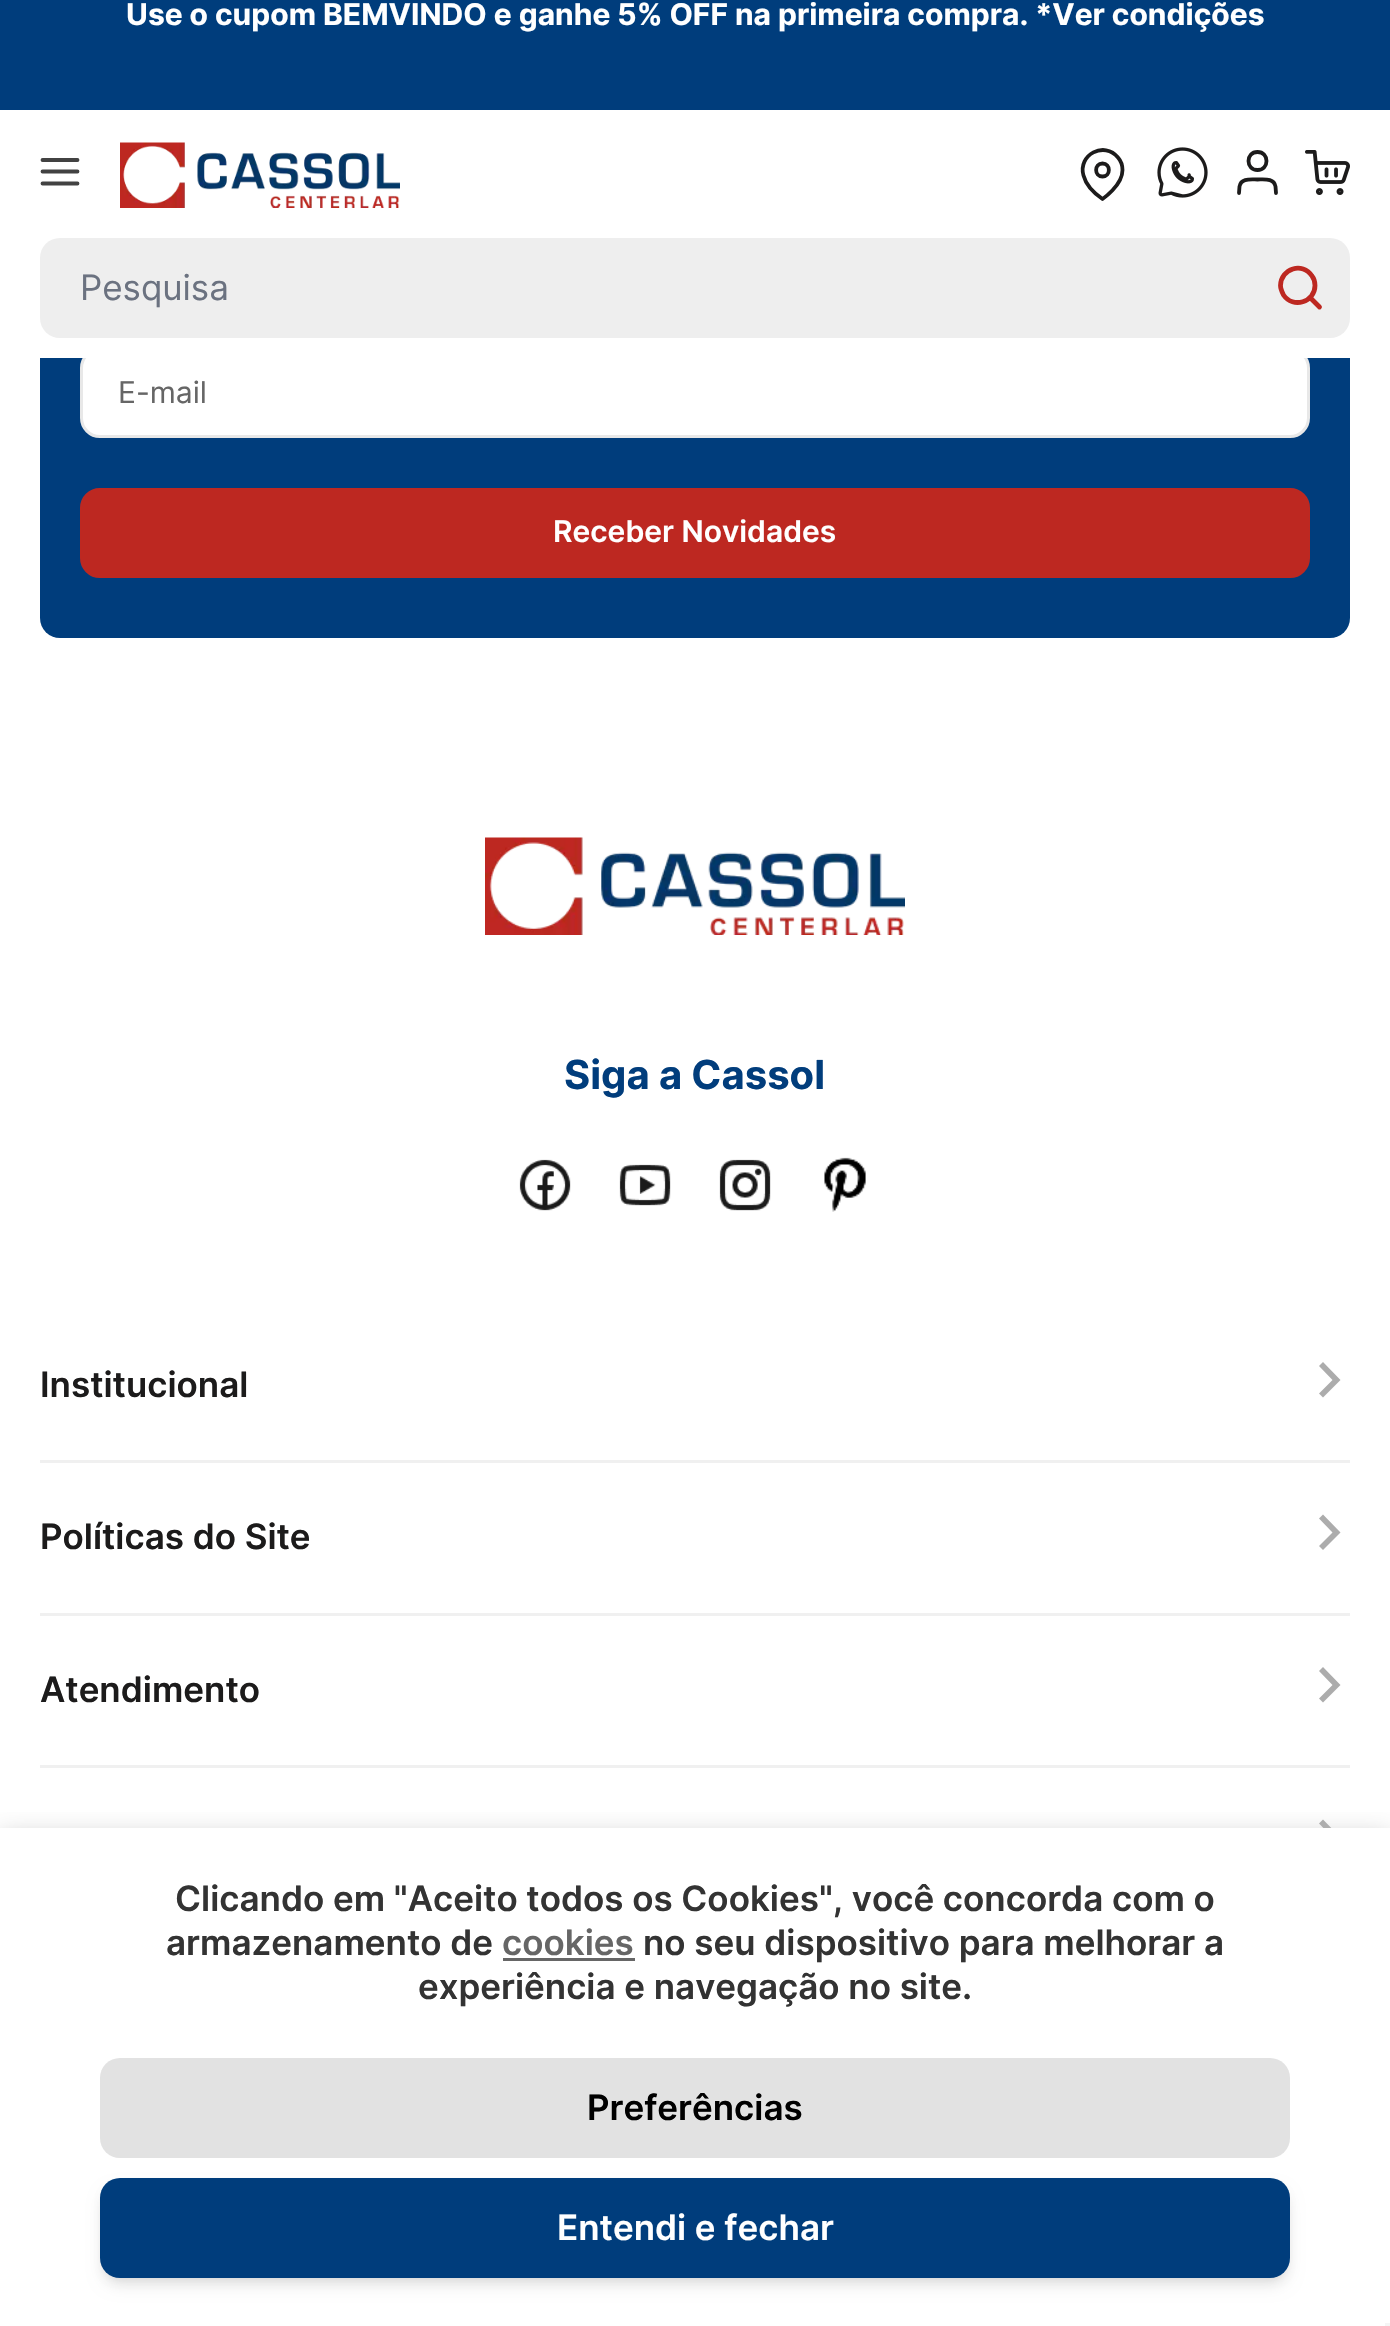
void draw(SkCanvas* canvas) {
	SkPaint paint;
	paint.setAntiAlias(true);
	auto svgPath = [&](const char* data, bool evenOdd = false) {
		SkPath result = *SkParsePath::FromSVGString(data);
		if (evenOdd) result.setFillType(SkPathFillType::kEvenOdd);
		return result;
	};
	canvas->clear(0xffffffff);
	paint.setColor(0xff003d7c);
	canvas->drawRoundRect(SkRect::MakeXYWH(40, -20, 1310, 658), 20, 20, paint);
	canvas->drawRect(SkRect::MakeXYWH(0, 0, 1390, 110), paint);
	SkFont f1(fontMgr->matchFamilyStyle("Inter", SkFontStyle::Bold()), 30);
	f1.setSubpixel(true);
	paint.setColor(0xffffffff);
	canvas->drawString("Use o cupom BEMVINDO e ganhe 5% OFF na primeira compra. *Ver condições", 126, 25, f1, paint);
	canvas->drawRoundRect(SkRect::MakeXYWH(81.5, 349.5, 1227, 87), 18.5, 18.5, paint);
	paint.setStroke(true);
	paint.setStrokeWidth(3);
	paint.setColor(0xffe8e8e8);
	canvas->drawRoundRect(SkRect::MakeXYWH(81.5, 349.5, 1227, 87), 18.5, 18.5, paint);
	paint.setStroke(false);
	paint.setColor(0xffffffff);
	canvas->drawRect(SkRect::MakeXYWH(40, 110, 1310, 248), paint);
	paint.setStroke(true);
	paint.setStrokeWidth(3.8);
	paint.setStrokeCap(SkPaint::kRound_Cap);
	paint.setStrokeJoin(SkPaint::kRound_Join);
	paint.setColor(0xff424242);
	canvas->drawPath(svgPath("M42.5 171.5H77.5M42.5 160H77.5M42.5 183.5H77.5"), paint);
	canvas->drawImageRect(SkImages::DeferredFromEncodedData(SkData::MakeFromFileName("img1.png")), SkRect::MakeXYWH(120, 142, 280, 66), SkSamplingOptions());
	paint.setColor(0xff1c1b1b);
	canvas->drawPath(svgPath("M1122.5 170C1122.5 185.5 1102.5 199 1102.5 199C1094.5 193.5 1086 185 1083.5 175.5C1077.5 155 1104.5 140.5 1118 157.5C1121 161 1122.5 165.5 1122.5 170ZM1102.5 176.5C1111 176.5 1111 163.5 1102.5 163.5C1094 163.5 1094 176.5 1102.5 176.5Z"), paint);
	canvas->drawImageRect(SkImages::DeferredFromEncodedData(SkData::MakeFromFileName("img2.png")), SkRect::MakeXYWH(1157, 147, 51, 51), SkSamplingOptions());
	canvas->drawPath(svgPath("M1276 193L1275.5 186.5C1274 178 1264.5 179.5 1257.5 179.5C1250.5 179.5 1241 178 1239.5 186.5L1239 193M1257.5 170C1269.5 170 1269.5 152 1257.5 152C1245.5 152 1245.5 170 1257.5 170Z"), paint);
	canvas->drawImageRect(SkImages::DeferredFromEncodedData(SkData::MakeFromFileName("img3.png")), SkRect::MakeXYWH(1305, 150, 45, 45), SkSamplingOptions());
	paint.setStroke(false);
	paint.setColor(0xffeeeeee);
	canvas->drawRoundRect(SkRect::MakeXYWH(40, 238, 1310, 100), 20, 20, paint);
	SkFont f2(fontMgr->matchFamilyStyle("Inter", SkFontStyle::Normal()), 35);
	f2.setSubpixel(true);
	paint.setColor(0xff6b7280);
	canvas->drawString("Pesquisa", 80, 300, f2, paint);
	paint.setStroke(true);
	paint.setStrokeWidth(4.8);
	paint.setColor(0xffbd2821);
	canvas->drawPath(svgPath("M1319.5 307L1310 297.5M1315 285.5C1315 302 1293 309 1283.5 295C1282 292 1280.5 288.5 1280.5 285.5C1281 268.5 1302.5 261.5 1312 276C1314 278.5 1315 282 1315 285.5Z"), paint);
	SkFont f3(fontMgr->matchFamilyStyle("Inter", SkFontStyle::Normal()), 30);
	f3.setSubpixel(true);
	paint.setStroke(false);
	paint.setColor(0xff666666);
	canvas->drawString("E-mail", 118, 403, f3, paint);
	paint.setColor(0xffbd2821);
	canvas->drawRoundRect(SkRect::MakeXYWH(81.5, 489.5, 1227, 87), 18.5, 18.5, paint);
	paint.setStroke(true);
	paint.setStrokeWidth(3);
	paint.setStrokeCap(SkPaint::kButt_Cap);
	paint.setStrokeJoin(SkPaint::kMiter_Join);
	canvas->drawRoundRect(SkRect::MakeXYWH(81.5, 489.5, 1227, 87), 18.5, 18.5, paint);
	SkFont f4(fontMgr->matchFamilyStyle("Inter", SkFontStyle(600, SkFontStyle::kNormal_Width, SkFontStyle::kUpright_Slant)), 30);
	f4.setSubpixel(true);
	paint.setStroke(false);
	paint.setColor(0xffffffff);
	canvas->drawString("Receber Novidades", 553, 542, f4, paint);
	canvas->drawImageRect(SkImages::DeferredFromEncodedData(SkData::MakeFromFileName("img4.png")), SkRect::MakeXYWH(485, 837, 420, 98), SkSamplingOptions());
	SkFont f5(fontMgr->matchFamilyStyle("Inter", SkFontStyle::Bold()), 40);
	f5.setSubpixel(true);
	paint.setColor(0xff013d7c);
	canvas->drawString("Siga a Cassol", 564, 1089, f5, paint);
	canvas->drawImageRect(SkImages::DeferredFromEncodedData(SkData::MakeFromFileName("img5.png")), SkRect::MakeXYWH(519, 1159, 52, 52), SkSamplingOptions());
	canvas->drawImageRect(SkImages::DeferredFromEncodedData(SkData::MakeFromFileName("img6.png")), SkRect::MakeXYWH(619, 1164, 52, 42), SkSamplingOptions());
	canvas->drawImageRect(SkImages::DeferredFromEncodedData(SkData::MakeFromFileName("img7.png")), SkRect::MakeXYWH(719, 1159, 52, 52), SkSamplingOptions());
	canvas->drawImageRect(SkImages::DeferredFromEncodedData(SkData::MakeFromFileName("img8.png")), SkRect::MakeXYWH(824, 1157, 42, 55), SkSamplingOptions());
	paint.setColor(0xfff0f0f0);
	canvas->drawRect(SkRect::MakeXYWH(40, 1460, 1310, 3), paint);
	SkFont f6(fontMgr->matchFamilyStyle("Inter", SkFontStyle(600, SkFontStyle::kNormal_Width, SkFontStyle::kUpright_Slant)), 35);
	f6.setSubpixel(true);
	paint.setColor(0xff1c1b1b);
	canvas->drawString("Institucional", 40, 1397, f6, paint);
	paint.setColor(0xffacacac);
	canvas->drawPath(svgPath("M1332.5 1380L1319 1366L1323 1362L1340.5 1380L1323 1397.5L1319 1393.5Z"), paint);
	paint.setColor(0xfff0f0f0);
	canvas->drawRect(SkRect::MakeXYWH(40, 1613, 1310, 3), paint);
	paint.setColor(0xff1c1b1b);
	canvas->drawString("Políticas do Site", 40, 1549, f6, paint);
	paint.setColor(0xffacacac);
	canvas->drawPath(svgPath("M1332.5 1532.5L1319 1518.5L1323 1514.5L1340.5 1532.5L1323 1550L1319 1546Z"), paint);
	paint.setColor(0xfff0f0f0);
	canvas->drawRect(SkRect::MakeXYWH(40, 1765, 1310, 3), paint);
	paint.setColor(0xff1c1b1b);
	canvas->drawString("Atendimento", 40, 1702, f6, paint);
	paint.setColor(0xffacacac);
	canvas->drawPath(svgPath("M1332.5 1685L1319 1671L1323 1667L1340.5 1685L1323 1702.5L1319 1698.5Z"), paint);
	canvas->drawPath(svgPath("M1332.5 1837.5L1319 1823.5L1323 1819.5L1340.5 1837.5L1323 1855L1319 1851Z"), paint);
	paint.setColor(0xffffffff);
	canvas->drawRect(SkRect::MakeXYWH(1319, 1828, 22, 27), paint);
	canvas->save();
	canvas->clipRect(SkRect::MakeXYWH(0, 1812, 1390, 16));
	paint.setColor(0xffb9b9b9);
	paint.setMaskFilter(SkMaskFilter::MakeBlur(kNormal_SkBlurStyle, 12.5));
	canvas->drawRect(SkRect::MakeXYWH(0, 1838, 1390, 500), paint);
	paint.setMaskFilter(nullptr);
	canvas->restore();
	paint.setColor(0xff333333);
	canvas->drawString("Clicando em \"Aceito todos os Cookies\", você concorda com o", 175, 1911, f6, paint);
	canvas->drawString("armazenamento de", 166, 1955, f6, paint);
	paint.setColor(0xff666666);
	canvas->drawString("cookies", 502, 1955, f6, paint);
	canvas->drawRect(SkRect::MakeXYWH(503, 1958, 132, 3), paint);
	paint.setColor(0xff333333);
	canvas->drawString("no seu dispositivo para melhorar a", 643, 1955, f6, paint);
	canvas->drawString("experiência e navegação no site.", 418, 1999, f6, paint);
	paint.setColor(0xffe2e2e2);
	canvas->drawRoundRect(SkRect::MakeXYWH(100, 2058, 1190, 100), 20, 20, paint);
	paint.setColor(0xff000000);
	canvas->drawString("Preferências", 587, 2120, f6, paint);
	paint.setColor(0x1a000000);
	paint.setMaskFilter(SkMaskFilter::MakeBlur(kNormal_SkBlurStyle, 5));
	canvas->drawRoundRect(SkRect::MakeXYWH(105, 2188, 1180, 90), 15, 15, paint);
	paint.setMaskFilter(nullptr);
	paint.setMaskFilter(SkMaskFilter::MakeBlur(kNormal_SkBlurStyle, 7.5));
	canvas->drawRoundRect(SkRect::MakeXYWH(103, 2190, 1185, 95), 18, 18, paint);
	paint.setMaskFilter(nullptr);
	paint.setColor(0xff003d7c);
	canvas->drawRoundRect(SkRect::MakeXYWH(100, 2178, 1190, 100), 20, 20, paint);
	paint.setColor(0xffffffff);
	canvas->drawString("Entendi e fechar", 557, 2240, f6, paint);
	paint.setColor(0xfff5f5f5);
	canvas->drawRect(SkRect::MakeXYWH(1385, 2323, 5, 3), paint);
}
